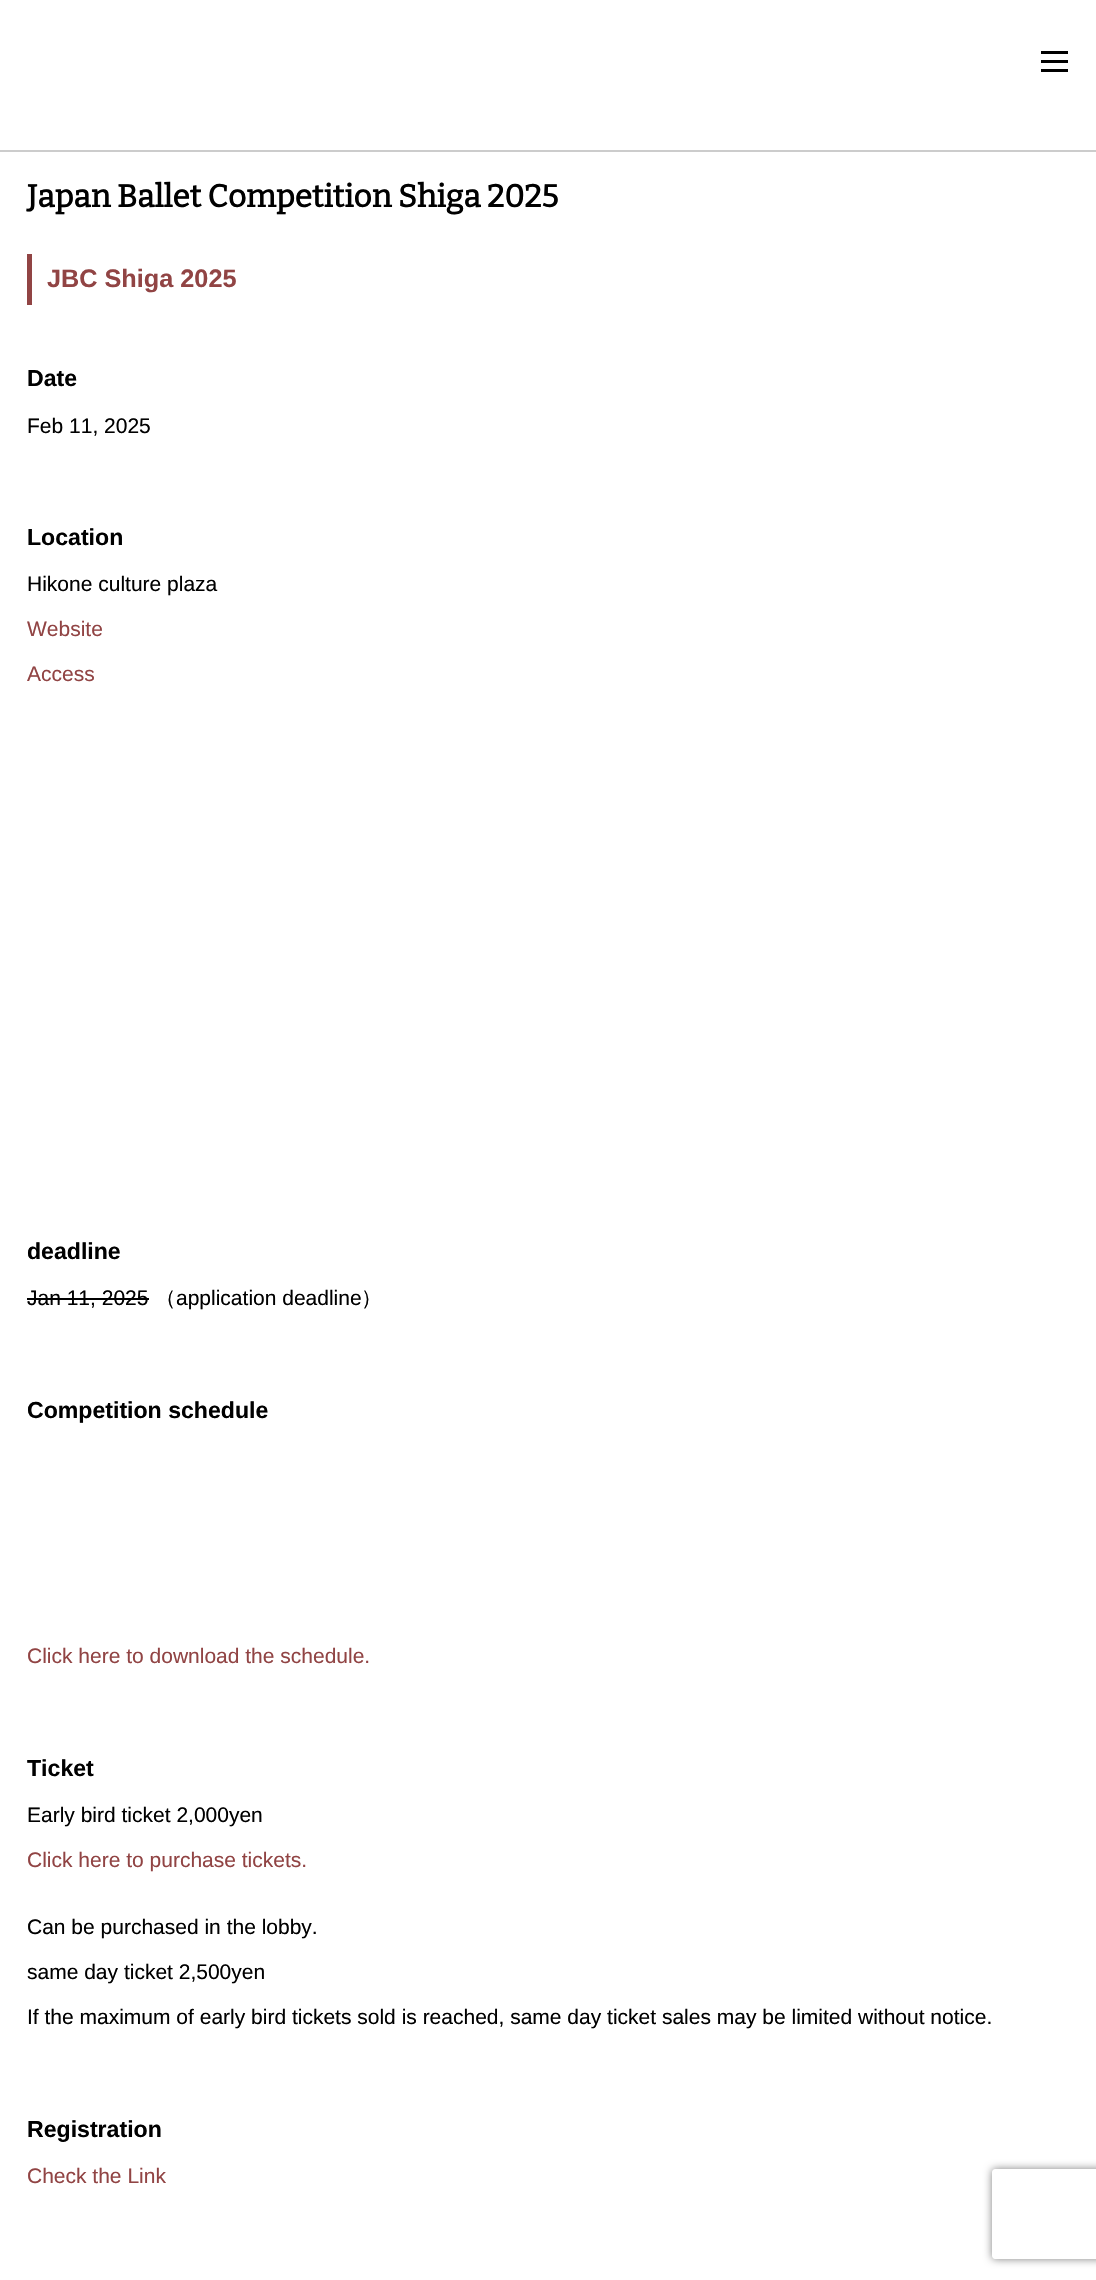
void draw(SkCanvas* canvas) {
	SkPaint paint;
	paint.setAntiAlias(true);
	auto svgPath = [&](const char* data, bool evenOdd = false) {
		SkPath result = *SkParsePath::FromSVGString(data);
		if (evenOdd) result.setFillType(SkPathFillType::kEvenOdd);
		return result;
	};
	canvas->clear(0xffffffff);
	paint.setColor(0xffcccccc);
	canvas->drawRect(SkRect::MakeXYWH(0, 150, 1096, 2), paint);
	paint.setColor(0xff000000);
	canvas->drawRect(SkRect::MakeXYWH(1041, 60, 27, 3), paint);
	canvas->drawRect(SkRect::MakeXYWH(1041, 51, 27, 3), paint);
	canvas->drawRect(SkRect::MakeXYWH(1041, 69, 27, 3), paint);
	SkFont f1(fontMgr->matchFamilyStyle("Bitter", SkFontStyle::Bold()), 31.5);
	f1.setSubpixel(true);
	canvas->drawString("Japan Ballet Competition Shiga 2025", 27, 207, f1, paint);
	paint.setColor(0xff914444);
	canvas->drawRect(SkRect::MakeXYWH(27, 254, 5, 51), paint);
	SkFont f2(fontMgr->matchFamilyStyle("Liberation Sans", SkFontStyle::Bold()), 25.25);
	f2.setSubpixel(true);
	canvas->drawString("JBC Shiga 2025", 47, 287, f2, paint);
	SkFont f3(fontMgr->matchFamilyStyle("Liberation Sans", SkFontStyle::Bold()), 23.1);
	f3.setSubpixel(true);
	paint.setColor(0xff000000);
	canvas->drawString("Date", 27, 386, f3, paint);
	SkFont f4(fontMgr->matchFamilyStyle("Liberation Sans", SkFontStyle::Normal()), 21);
	f4.setSubpixel(true);
	canvas->drawString("Feb 11, 2025", 27, 433, f4, paint);
	canvas->drawString("Location", 27, 545, f3, paint);
	canvas->drawString("Hikone culture plaza", 27, 591, f4, paint);
	paint.setColor(0xff914444);
	canvas->drawString("Website", 27, 636, f4, paint);
	canvas->drawString("Access", 27, 681, f4, paint);
	paint.setColor(0xff000000);
	canvas->drawString("deadline", 27, 1259, f3, paint);
	canvas->drawString("Jan 11, 2025", 27, 1305, f4, paint);
	canvas->drawRect(SkRect::MakeXYWH(27, 1298, 122, 2), paint);
	SkFont f5(fontMgr->matchFamilyStyle("WenQuanYi Zen Hei", SkFontStyle(500, SkFontStyle::kNormal_Width, SkFontStyle::kUpright_Slant)), 21);
	f5.setSubpixel(true);
	canvas->drawString("（", 155, 1305, f5, paint);
	canvas->drawString("application deadline", 176, 1305, f4, paint);
	canvas->drawString("）", 361, 1305, f5, paint);
	canvas->drawString("Competition schedule", 27, 1418, f3, paint);
	paint.setColor(0xff914444);
	canvas->drawString("Click here to download the schedule.", 27, 1663, f4, paint);
	paint.setColor(0xff000000);
	canvas->drawString("Ticket", 27, 1776, f3, paint);
	canvas->drawString("Early bird ticket 2,000yen", 27, 1822, f4, paint);
	paint.setColor(0xff914444);
	canvas->drawString("Click here to purchase tickets.", 27, 1867, f4, paint);
	paint.setColor(0xff000000);
	canvas->drawString("Can be purchased in the lobby.", 27, 1934, f4, paint);
	canvas->drawString("same day ticket 2,500yen", 27, 1979, f4, paint);
	canvas->drawString("If the maximum of early bird tickets sold is reached, same day ticket sales may be limited without notice.", 27, 2024, f4, paint);
	canvas->drawString("Registration", 27, 2137, f3, paint);
	paint.setColor(0xff914444);
	canvas->drawString("Check the Link", 27, 2183, f4, paint);
	canvas->save();
	canvas->clipPath(svgPath("M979 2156H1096V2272H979ZM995 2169H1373C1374.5 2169 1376 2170.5 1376 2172V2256C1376 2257.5 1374.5 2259 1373 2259H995C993.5 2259 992 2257.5 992 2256V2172C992 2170.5 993.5 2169 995 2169Z", true), true);
	paint.setColor(0xff808080);
	paint.setMaskFilter(SkMaskFilter::MakeBlur(kNormal_SkBlurStyle, 4));
	canvas->drawRoundRect(SkRect::MakeXYWH(992, 2169, 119, 90), 3, 3, paint);
	paint.setMaskFilter(nullptr);
	canvas->restore();
}
